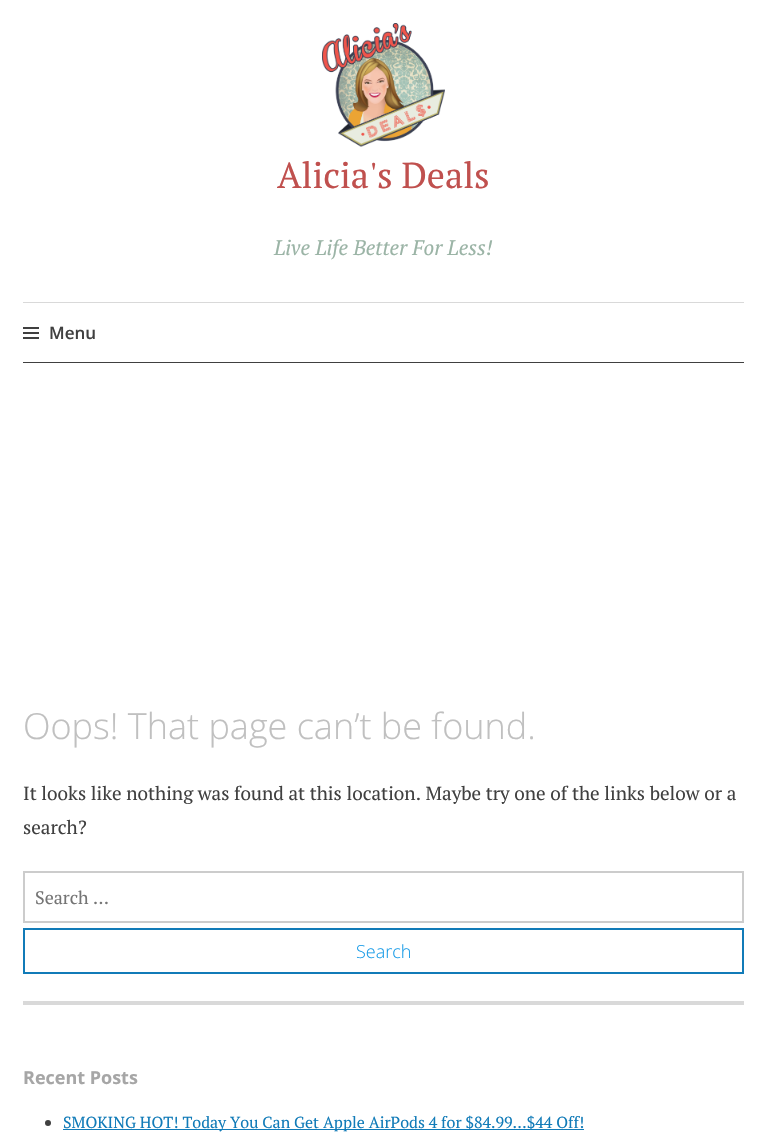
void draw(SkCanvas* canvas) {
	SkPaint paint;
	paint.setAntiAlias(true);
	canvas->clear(0xffffffff);
	canvas->drawImageRect(SkImages::DeferredFromEncodedData(SkData::MakeFromFileName("img1.png")), SkRect::MakeXYWH(322, 23, 123, 124), SkSamplingOptions());
	SkFont f1(fontMgr->matchFamilyStyle("PT Serif", SkFontStyle::Normal()), 36);
	f1.setSubpixel(true);
	paint.setColor(0xffc0504e);
	canvas->drawString("Alicia's Deals", 277, 188, f1, paint);
	SkFont f2(fontMgr->matchFamilyStyle("PT Serif", SkFontStyle::Italic()), 21);
	f2.setSubpixel(true);
	paint.setColor(0xff9bb4a6);
	canvas->drawString("Live Life Better For Less!", 274, 255, f2, paint);
	paint.setColor(0xffd9d9d9);
	canvas->drawRect(SkRect::MakeXYWH(23, 302, 721, 1), paint);
	paint.setColor(0xff404040);
	canvas->drawRect(SkRect::MakeXYWH(23, 362, 721, 1), paint);
	canvas->drawImageRect(SkImages::DeferredFromEncodedData(SkData::MakeFromFileName("img2.png")), SkRect::MakeXYWH(23, 327, 16, 12), SkSamplingOptions());
	SkFont f3(fontMgr->matchFamilyStyle("Open Sans", SkFontStyle(600, SkFontStyle::kNormal_Width, SkFontStyle::kUpright_Slant)), 17);
	f3.setSubpixel(true);
	canvas->drawString("Menu", 49, 339, f3, paint);
	SkFont f4(fontMgr->matchFamilyStyle("Open Sans", SkFontStyle(300, SkFontStyle::kNormal_Width, SkFontStyle::kUpright_Slant)), 36);
	f4.setSubpixel(true);
	paint.setColor(0xffc0c0c0);
	canvas->drawString("Oops! That page can’t be found.", 23, 739, f4, paint);
	SkFont f5(fontMgr->matchFamilyStyle("PT Serif", SkFontStyle::Normal()), 19);
	f5.setSubpixel(true);
	paint.setColor(0xff404040);
	canvas->drawString("It looks like nothing was found at this location. Maybe try one of the links below or a", 23, 800, f5, paint);
	canvas->drawString("search?", 23, 834, f5, paint);
	paint.setStroke(true);
	paint.setStrokeWidth(2);
	paint.setColor(0xffcccccc);
	canvas->drawRect(SkRect::MakeXYWH(24, 872, 719, 50), paint);
	SkFont f6(fontMgr->matchFamilyStyle("PT Serif", SkFontStyle::Normal()), 18);
	f6.setSubpixel(true);
	paint.setStroke(false);
	paint.setColor(0xff757575);
	canvas->drawString("Search …", 35, 904, f6, paint);
	paint.setStroke(true);
	paint.setColor(0xff117bb8);
	canvas->drawRect(SkRect::MakeXYWH(24, 929, 719, 44), paint);
	SkFont f7(fontMgr->matchFamilyStyle("Open Sans", SkFontStyle(300, SkFontStyle::kNormal_Width, SkFontStyle::kUpright_Slant)), 18);
	f7.setSubpixel(true);
	paint.setStroke(false);
	paint.setColor(0xff159ae7);
	canvas->drawString("Search", 356, 958, f7, paint);
	paint.setColor(0xffd9d9d9);
	canvas->drawRect(SkRect::MakeXYWH(23, 1001, 721, 4), paint);
	SkFont f8(fontMgr->matchFamilyStyle("Open Sans", SkFontStyle::Bold()), 18);
	f8.setSubpixel(true);
	paint.setColor(0xffa6a6a6);
	canvas->drawString("Recent Posts", 23, 1084, f8, paint);
	paint.setColor(0xff404040);
	canvas->drawCircle(48, 1123, 3, paint);
	paint.setColor(0xff117bb8);
	canvas->drawRect(SkRect::MakeXYWH(63, 1129, 521, 1), paint);
	SkFont f9(fontMgr->matchFamilyStyle("PT Serif", SkFontStyle::Normal()), 16);
	f9.setSubpixel(true);
	canvas->drawString("SMOKING HOT! Today You Can Get Apple AirPods 4 for $84.99…$44 Off!", 63, 1128, f9, paint);
}
